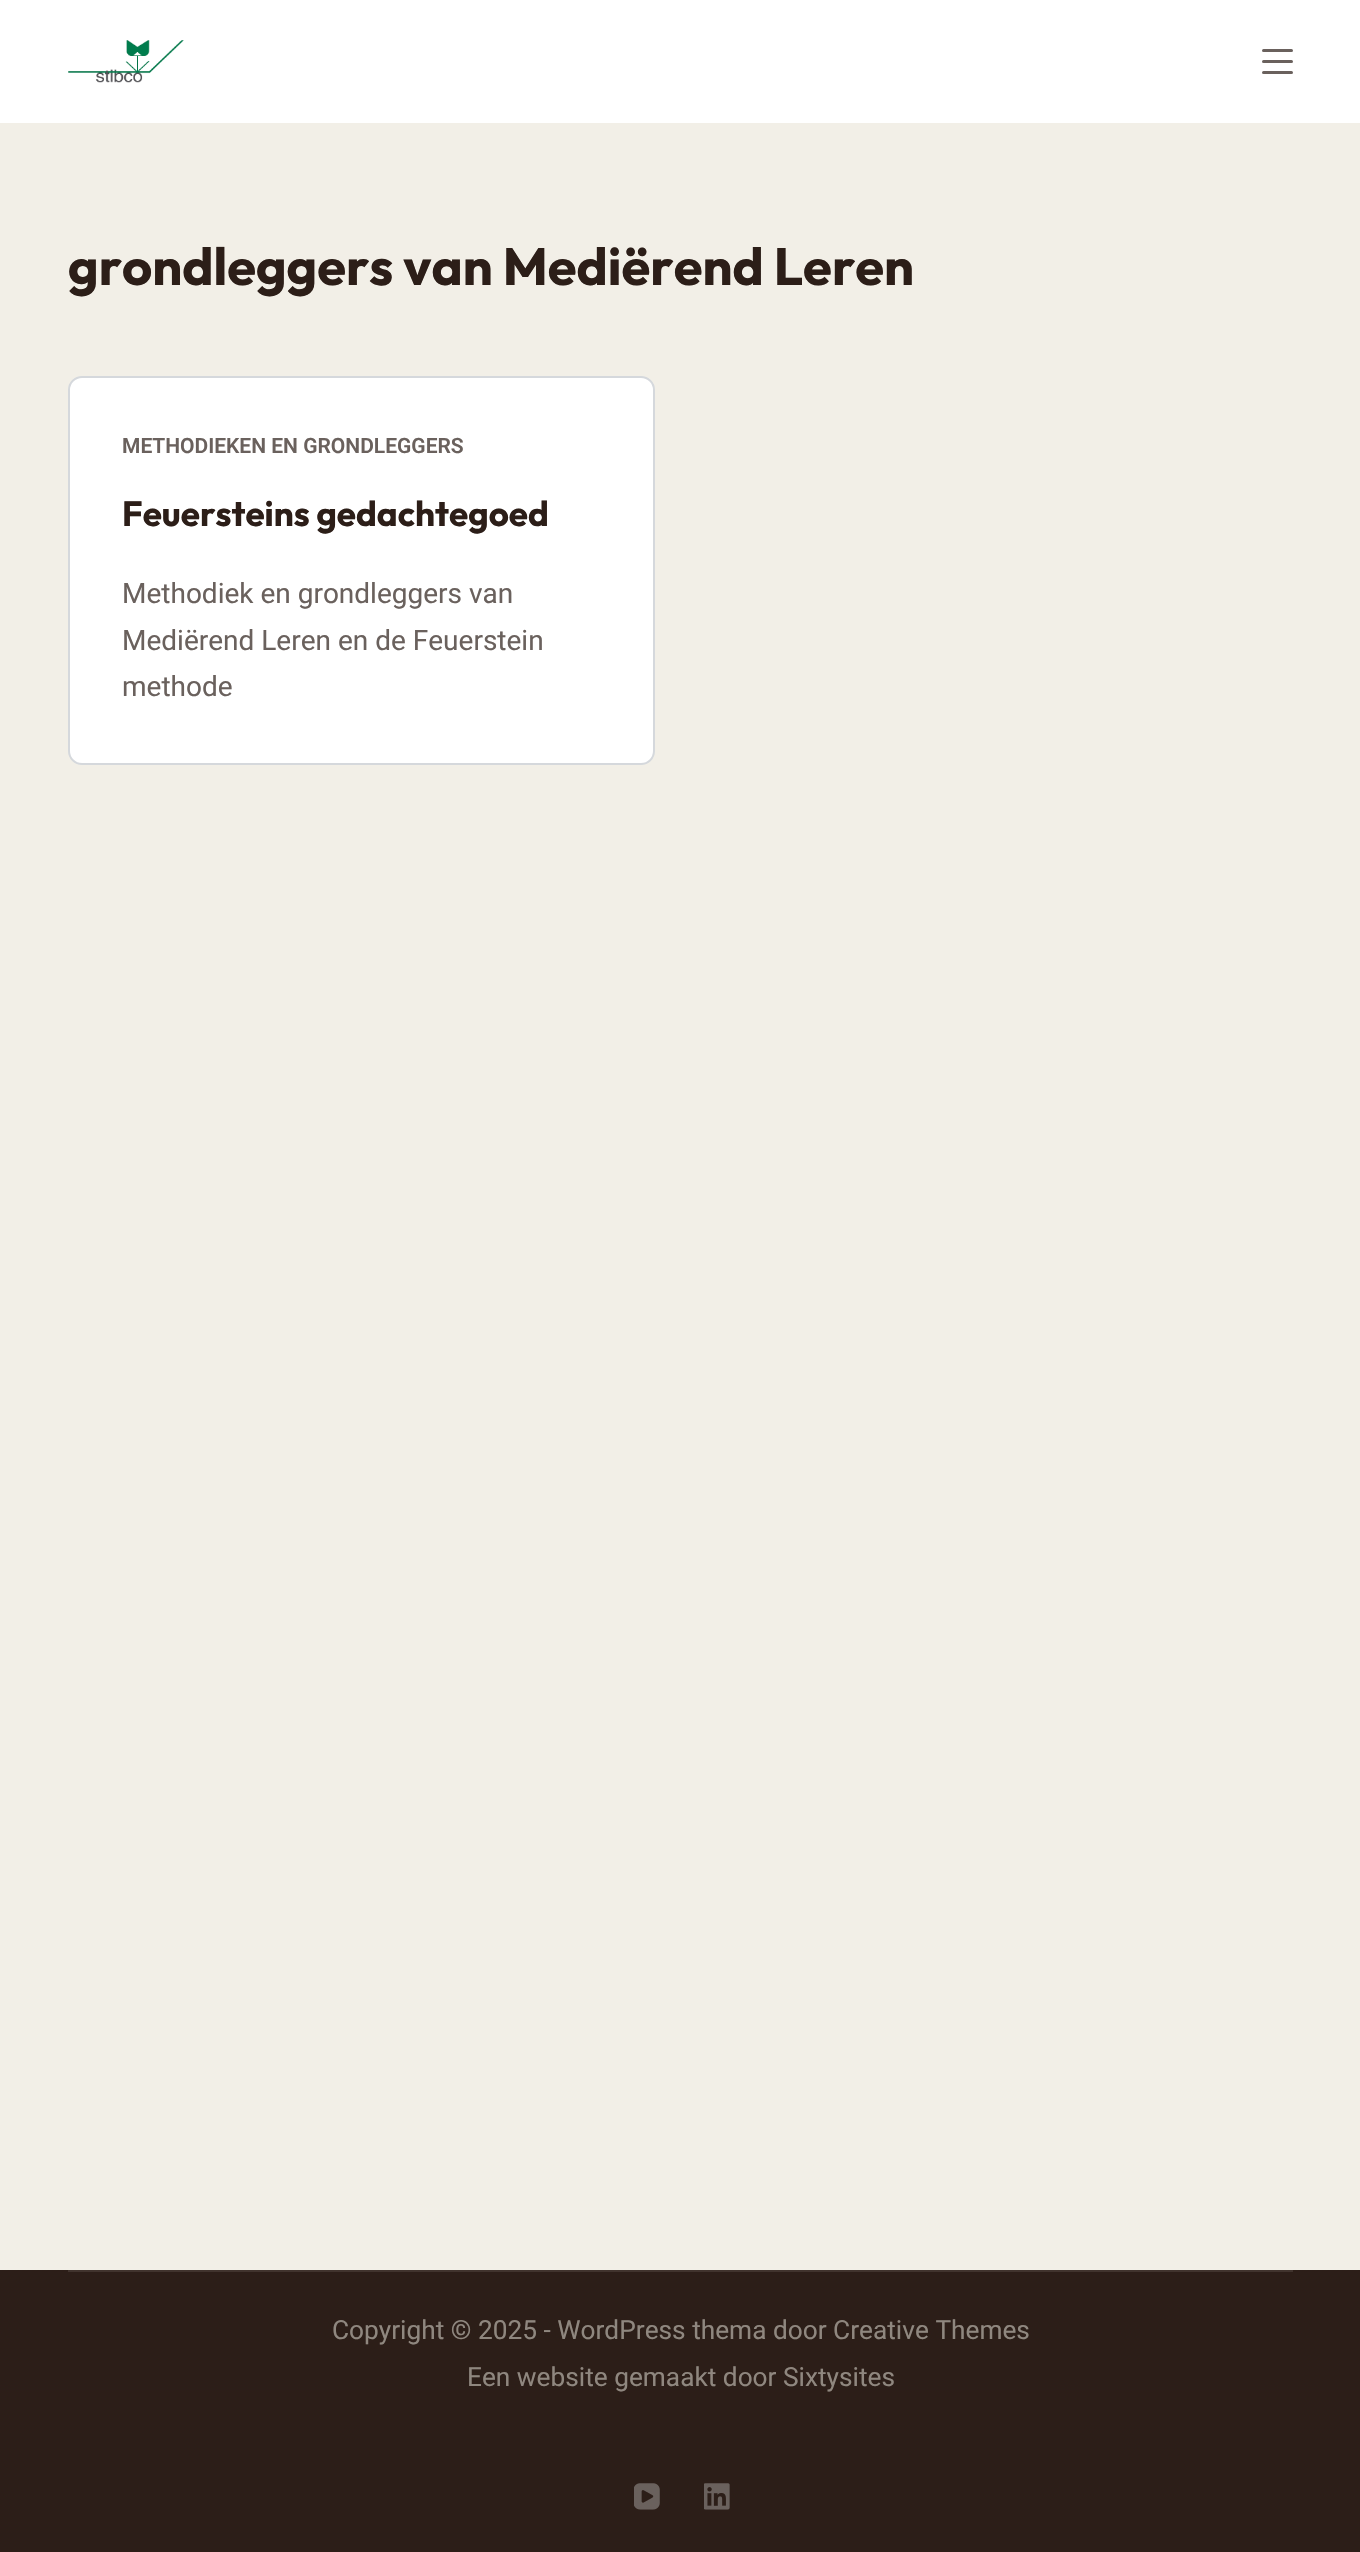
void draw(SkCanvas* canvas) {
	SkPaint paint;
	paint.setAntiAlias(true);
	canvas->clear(0xfff2efe7);
	paint.setColor(0xffffffff);
	canvas->drawRect(SkRect::MakeXYWH(0, 0, 1360, 123), paint);
	canvas->drawImageRect(SkImages::DeferredFromEncodedData(SkData::MakeFromFileName("img1.png")), SkRect::MakeXYWH(68, 40, 116, 43), SkSamplingOptions());
	paint.setColor(0xff6a615d);
	canvas->drawRoundRect(SkRect::MakeXYWH(1262, 49, 31, 3), 1.5, 1.5, paint);
	canvas->drawRoundRect(SkRect::MakeXYWH(1262, 60, 31, 3), 1.5, 1.5, paint);
	canvas->drawRoundRect(SkRect::MakeXYWH(1262, 71, 31, 3), 1.5, 1.5, paint);
	SkFont f1(fontMgr->matchFamilyStyle("Outfit", SkFontStyle::Bold()), 52.5);
	f1.setSubpixel(true);
	paint.setColor(0xff2c1e18);
	canvas->drawString("grondleggers van Mediërend Leren", 68, 285, f1, paint);
	paint.setColor(0xffffffff);
	canvas->drawRoundRect(SkRect::MakeXYWH(68, 376, 587, 389), 14, 14, paint);
	paint.setStroke(true);
	paint.setStrokeWidth(2);
	paint.setColor(0x332c3e50);
	canvas->drawRoundRect(SkRect::MakeXYWH(69, 377, 585, 387), 13, 13, paint);
	SkFont f2(fontMgr->matchFamilyStyle("Roboto", SkFontStyle(600, SkFontStyle::kNormal_Width, SkFontStyle::kUpright_Slant)), 21);
	f2.setSubpixel(true);
	paint.setStroke(false);
	paint.setColor(0xff6a615d);
	canvas->drawString("METHODIEKEN EN GRONDLEGGERS", 122, 453, f2, paint);
	SkFont f3(fontMgr->matchFamilyStyle("Outfit", SkFontStyle::Bold()), 35);
	f3.setSubpixel(true);
	paint.setColor(0xff2c1e18);
	canvas->drawString("Feuersteins gedachtegoed", 122, 526, f3, paint);
	SkFont f4(fontMgr->matchFamilyStyle("Roboto", SkFontStyle::Normal()), 28);
	f4.setSubpixel(true);
	paint.setColor(0xff6a615d);
	canvas->drawString("Methodiek en grondleggers van", 122, 603, f4, paint);
	canvas->drawString("Mediërend Leren en de Feuerstein", 122, 650, f4, paint);
	canvas->drawString("methode", 122, 696, f4, paint);
	paint.setColor(0xff2c1e18);
	canvas->drawRect(SkRect::MakeXYWH(0, 2270, 1360, 282), paint);
	paint.setColor(0xff40332d);
	canvas->drawRect(SkRect::MakeXYWH(68, 2270, 1225, 2), paint);
	SkFont f5(fontMgr->matchFamilyStyle("Roboto", SkFontStyle::Normal()), 26.25);
	f5.setSubpixel(true);
	paint.setColor(0xff8f877f);
	canvas->drawString("Copyright © 2025 - WordPress thema door Creative Themes", 332, 2339, f5, paint);
	canvas->drawString("Een website gemaakt door Sixtysites", 467, 2386, f5, paint);
	canvas->drawImageRect(SkImages::DeferredFromEncodedData(SkData::MakeFromFileName("img2.png")), SkRect::MakeXYWH(634, 2483, 26, 27), SkSamplingOptions());
	canvas->drawImageRect(SkImages::DeferredFromEncodedData(SkData::MakeFromFileName("img3.png")), SkRect::MakeXYWH(704, 2483, 26, 27), SkSamplingOptions());
}
